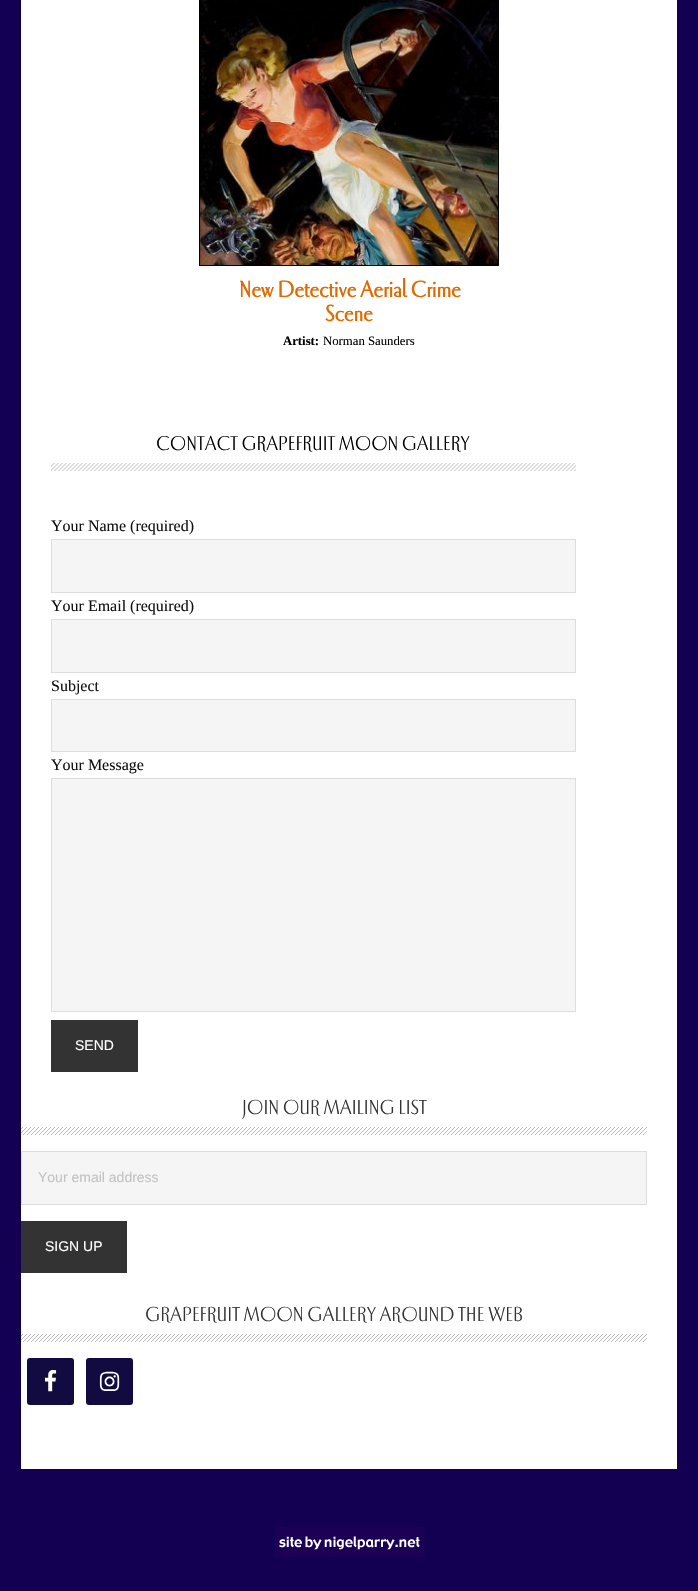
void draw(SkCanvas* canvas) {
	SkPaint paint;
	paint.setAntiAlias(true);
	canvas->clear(0xff130053);
	paint.setColor(0xffffffff);
	canvas->drawRect(SkRect::MakeXYWH(21, 0, 656, 1469), paint);
	paint.setStroke(true);
	paint.setStrokeWidth(1);
	paint.setColor(0xff000000);
	canvas->drawRect(SkRect::MakeXYWH(199.5, -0.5, 299, 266), paint);
	canvas->drawImageRect(SkImages::DeferredFromEncodedData(SkData::MakeFromFileName("img1.png")), SkRect::MakeXYWH(200, 0, 298, 265), SkSamplingOptions());
	SkFont f1(fontMgr->matchFamilyStyle("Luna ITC", SkFontStyle::Bold()), 23.5);
	f1.setSubpixel(true);
	paint.setStroke(false);
	paint.setColor(0xffdf6a00);
	canvas->drawString("New Detective Aerial Crime", 239, 297, f1, paint);
	canvas->drawString("Scene", 325, 321, f1, paint);
	SkFont f2(fontMgr->matchFamilyStyle("Liberation Serif", SkFontStyle::Bold()), 12.75);
	f2.setSubpixel(true);
	paint.setColor(0xff000000);
	canvas->drawString("Artist:", 283, 345, f2, paint);
	SkFont f3(fontMgr->matchFamilyStyle("Liberation Serif", SkFontStyle::Normal()), 12.75);
	f3.setSubpixel(true);
	canvas->drawString("Norman Saunders", 323, 345, f3, paint);
	canvas->drawImageRect(SkImages::DeferredFromEncodedData(SkData::MakeFromFileName("img2.png")), SkRect::MakeXYWH(51, 463, 525, 8), SkSamplingOptions());
	SkFont f4(fontMgr->matchFamilyStyle("Luna ITC", SkFontStyle::Normal()), 20.75);
	f4.setSubpixel(true);
	canvas->drawString("CONTACT GRAPEFRUIT MOON GALLERY", 156, 450, f4, paint);
	SkFont f5(fontMgr->matchFamilyStyle("Liberation Serif", SkFontStyle::Normal()), 16);
	f5.setSubpixel(true);
	paint.setColor(0xff111111);
	canvas->drawString("Your Name (required)", 51, 531, f5, paint);
	paint.setColor(0xfff5f5f5);
	canvas->drawRect(SkRect::MakeXYWH(51.5, 539.5, 524, 53), paint);
	paint.setStroke(true);
	paint.setColor(0xffdddddd);
	canvas->drawRect(SkRect::MakeXYWH(51.5, 539.5, 524, 53), paint);
	paint.setStroke(false);
	paint.setColor(0xff111111);
	canvas->drawString("Your Email (required)", 51, 611, f5, paint);
	paint.setColor(0xfff5f5f5);
	canvas->drawRect(SkRect::MakeXYWH(51.5, 619.5, 524, 53), paint);
	paint.setStroke(true);
	paint.setColor(0xffdddddd);
	canvas->drawRect(SkRect::MakeXYWH(51.5, 619.5, 524, 53), paint);
	paint.setStroke(false);
	paint.setColor(0xff111111);
	canvas->drawString("Subject", 51, 691, f5, paint);
	paint.setColor(0xfff5f5f5);
	canvas->drawRect(SkRect::MakeXYWH(51.5, 699.5, 524, 52), paint);
	paint.setStroke(true);
	paint.setColor(0xffdddddd);
	canvas->drawRect(SkRect::MakeXYWH(51.5, 699.5, 524, 52), paint);
	paint.setStroke(false);
	paint.setColor(0xff111111);
	canvas->drawString("Your Message", 51, 770, f5, paint);
	paint.setColor(0xfff5f5f5);
	canvas->drawRect(SkRect::MakeXYWH(51.5, 778.5, 524, 233), paint);
	paint.setStroke(true);
	paint.setColor(0xffdddddd);
	canvas->drawRect(SkRect::MakeXYWH(51.5, 778.5, 524, 233), paint);
	paint.setStroke(false);
	paint.setColor(0xff333333);
	canvas->drawRect(SkRect::MakeXYWH(51, 1020, 87, 52), paint);
	SkFont f6(fontMgr->matchFamilyStyle("Liberation Sans", SkFontStyle::Normal()), 14);
	f6.setSubpixel(true);
	paint.setColor(0xffffffff);
	canvas->drawString("SEND", 75, 1050, f6, paint);
	canvas->drawImageRect(SkImages::DeferredFromEncodedData(SkData::MakeFromFileName("img3.png")), SkRect::MakeXYWH(21, 1127, 626, 8), SkSamplingOptions());
	SkFont f7(fontMgr->matchFamilyStyle("Luna ITC", SkFontStyle::Normal()), 21);
	f7.setSubpixel(true);
	paint.setColor(0xff333333);
	canvas->drawString("JOIN OUR MAILING LIST", 242, 1114, f7, paint);
	paint.setColor(0xfff5f5f5);
	canvas->drawRect(SkRect::MakeXYWH(21.5, 1151.5, 625, 53), paint);
	paint.setStroke(true);
	paint.setColor(0xffdddddd);
	canvas->drawRect(SkRect::MakeXYWH(21.5, 1151.5, 625, 53), paint);
	paint.setStroke(false);
	paint.setColor(0xffc3c3c3);
	canvas->drawString("Your email address", 38, 1182, f6, paint);
	paint.setColor(0xff333333);
	canvas->drawRect(SkRect::MakeXYWH(21, 1221, 106, 52), paint);
	paint.setColor(0xffffffff);
	canvas->drawString("SIGN UP", 45, 1251, f6, paint);
	canvas->drawImageRect(SkImages::DeferredFromEncodedData(SkData::MakeFromFileName("img3.png")), SkRect::MakeXYWH(21, 1334, 626, 8), SkSamplingOptions());
	paint.setColor(0xff333333);
	canvas->drawString("GRAPEFRUIT MOON GALLERY AROUND THE WEB", 145, 1321, f7, paint);
	paint.setColor(0xff110b42);
	canvas->drawRoundRect(SkRect::MakeXYWH(27, 1358, 47, 47), 3, 3, paint);
	canvas->drawImageRect(SkImages::DeferredFromEncodedData(SkData::MakeFromFileName("img4.png")), SkRect::MakeXYWH(44, 1370, 13, 22), SkSamplingOptions());
	canvas->drawRoundRect(SkRect::MakeXYWH(86, 1358, 47, 47), 3, 3, paint);
	canvas->drawImageRect(SkImages::DeferredFromEncodedData(SkData::MakeFromFileName("img5.png")), SkRect::MakeXYWH(99, 1371, 21, 20), SkSamplingOptions());
	canvas->drawImageRect(SkImages::DeferredFromEncodedData(SkData::MakeFromFileName("img6.png")), SkRect::MakeXYWH(275, 1527, 149, 30), SkSamplingOptions());
}
